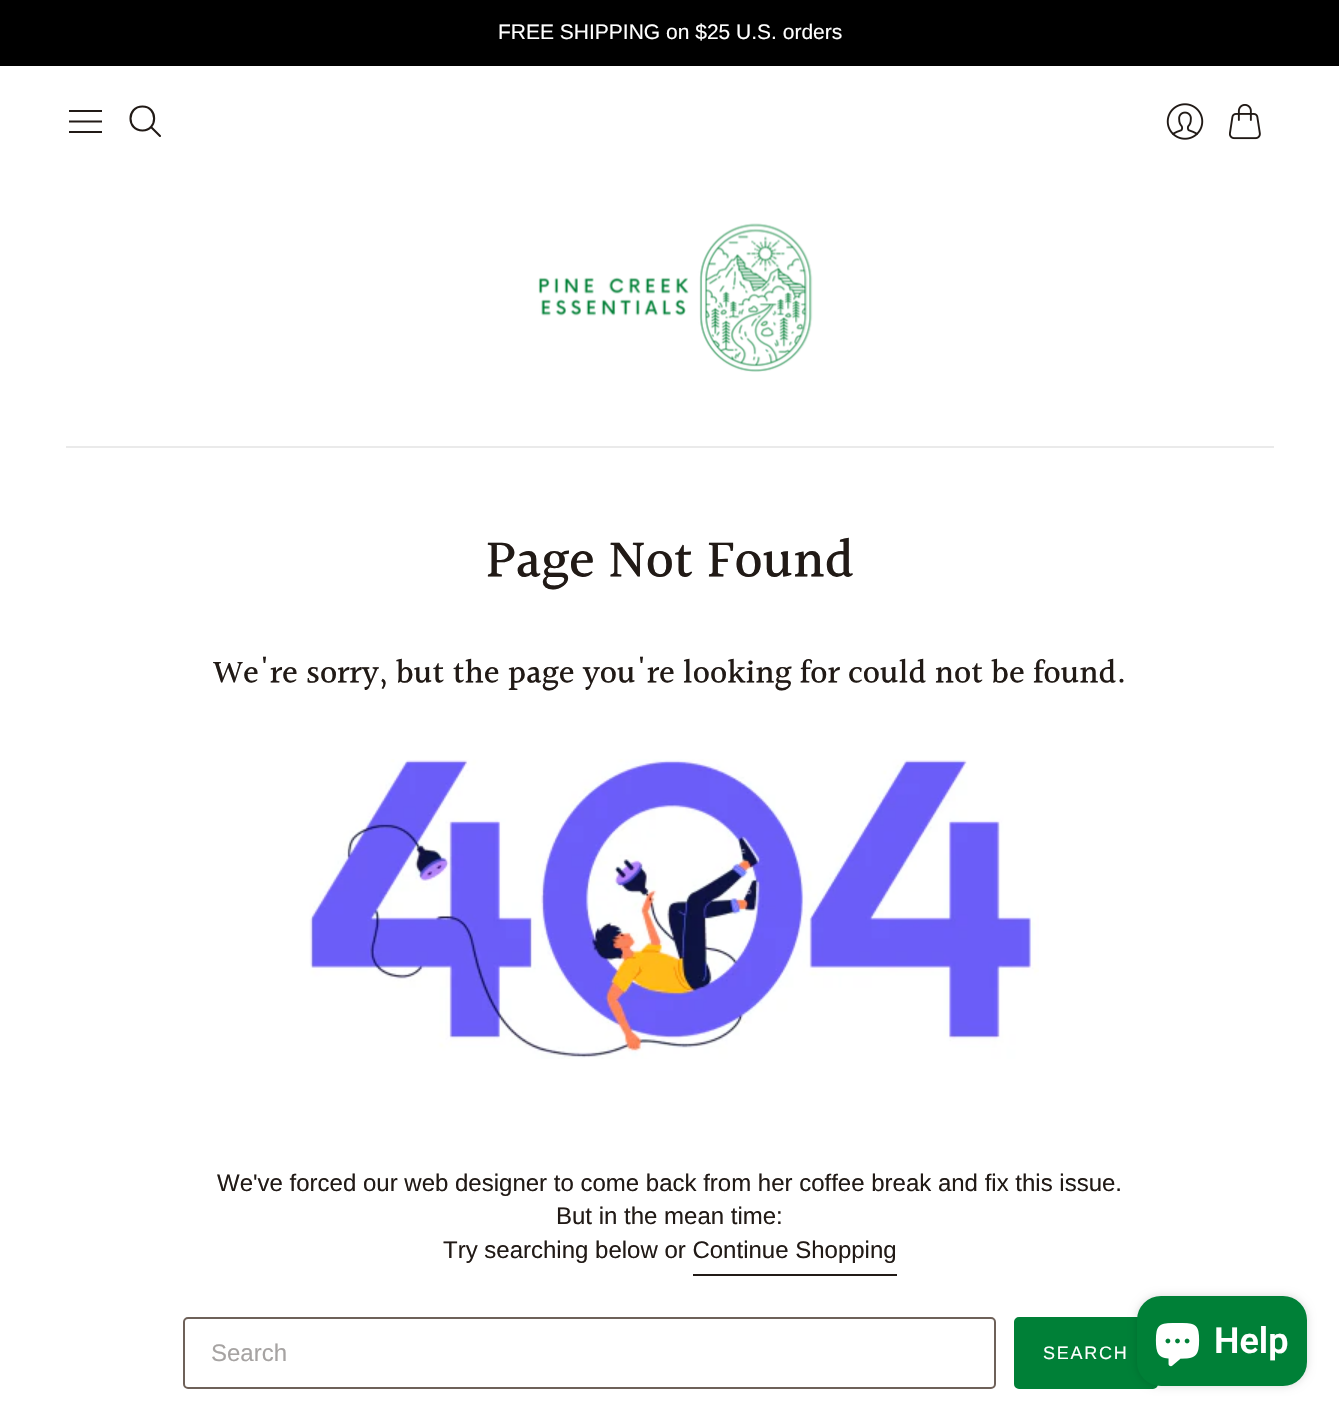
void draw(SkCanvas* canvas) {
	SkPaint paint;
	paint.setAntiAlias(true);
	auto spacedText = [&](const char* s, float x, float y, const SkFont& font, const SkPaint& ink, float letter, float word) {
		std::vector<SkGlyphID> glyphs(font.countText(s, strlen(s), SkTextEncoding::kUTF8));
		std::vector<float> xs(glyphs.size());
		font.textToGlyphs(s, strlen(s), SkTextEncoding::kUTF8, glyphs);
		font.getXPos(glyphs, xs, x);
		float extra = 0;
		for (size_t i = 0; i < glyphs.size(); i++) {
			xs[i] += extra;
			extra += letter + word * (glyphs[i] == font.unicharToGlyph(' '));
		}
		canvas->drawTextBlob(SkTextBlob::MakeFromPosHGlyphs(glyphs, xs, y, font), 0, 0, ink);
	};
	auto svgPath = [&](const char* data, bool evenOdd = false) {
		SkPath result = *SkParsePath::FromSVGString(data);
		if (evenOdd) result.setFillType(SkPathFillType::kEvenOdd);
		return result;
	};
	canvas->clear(0xffffffff);
	paint.setColor(0xff000000);
	canvas->drawRect(SkRect::MakeXYWH(0, 0, 1339, 66), paint);
	SkFont f1(fontMgr->matchFamilyStyle("Liberation Sans", SkFontStyle::Normal()), 21);
	f1.setSubpixel(true);
	paint.setColor(0xffffffff);
	canvas->drawString("FREE SHIPPING on $25 U.S. orders", 498, 39, f1, paint);
	paint.setColor(0xff211a16);
	canvas->drawRect(SkRect::MakeXYWH(69, 110, 33, 2), paint);
	paint.setStroke(true);
	paint.setStrokeWidth(2.2);
	canvas->drawPath(svgPath("M69 121.5H102"), paint);
	paint.setStroke(false);
	canvas->drawRect(SkRect::MakeXYWH(69, 131, 33, 2), paint);
	paint.setStroke(true);
	paint.setStrokeWidth(2.1);
	paint.setStrokeCap(SkPaint::kRound_Cap);
	paint.setStrokeJoin(SkPaint::kRound_Join);
	canvas->drawPath(svgPath("M142.5 130.5C158 130.5 158 106.5 142.5 106.5C126.5 106.5 126.5 130.5 142.5 130.5ZM160 136L151 127"), paint);
	canvas->drawImageRect(SkImages::DeferredFromEncodedData(SkData::MakeFromFileName("img1.png")), SkRect::MakeXYWH(1166, 103, 38, 37), SkSamplingOptions());
	canvas->drawImageRect(SkImages::DeferredFromEncodedData(SkData::MakeFromFileName("img2.png")), SkRect::MakeXYWH(1229, 104, 32, 36), SkSamplingOptions());
	paint.setStroke(false);
	paint.setColor(0xffeaeaea);
	canvas->drawRect(SkRect::MakeXYWH(66, 446, 1208, 2), paint);
	canvas->drawImageRect(SkImages::DeferredFromEncodedData(SkData::MakeFromFileName("img3.png")), SkRect::MakeXYWH(538, 223, 275, 149), SkSamplingOptions());
	SkFont f2(fontMgr->matchFamilyStyle("Halant", SkFontStyle(500, SkFontStyle::kNormal_Width, SkFontStyle::kUpright_Slant)), 54);
	f2.setSubpixel(true);
	paint.setColor(0xff211a16);
	canvas->drawString("Page Not Found", 486, 579, f2, paint);
	SkFont f3(fontMgr->matchFamilyStyle("Halant", SkFontStyle(500, SkFontStyle::kNormal_Width, SkFontStyle::kUpright_Slant)), 33);
	f3.setSubpixel(true);
	canvas->drawString("We're sorry, but the page you're looking for could not be found.", 213, 684, f3, paint);
	canvas->drawImageRect(SkImages::DeferredFromEncodedData(SkData::MakeFromFileName("img4.png")), SkRect::MakeXYWH(309, 759, 730, 300), SkSamplingOptions());
	SkFont f4(fontMgr->matchFamilyStyle("Liberation Sans", SkFontStyle::Normal()), 24);
	f4.setSubpixel(true);
	canvas->drawString("We've forced our web designer to come back from her coffee break and fix this issue.", 217, 1191, f4, paint);
	canvas->drawString("But in the mean time:", 556, 1224, f4, paint);
	canvas->drawString("Try searching below or Continue Shopping", 443, 1258, f4, paint);
	canvas->drawRect(SkRect::MakeXYWH(693, 1274, 204, 2), paint);
	paint.setStroke(true);
	paint.setStrokeWidth(2);
	paint.setStrokeCap(SkPaint::kButt_Cap);
	paint.setStrokeJoin(SkPaint::kMiter_Join);
	paint.setColor(0xff6e6159);
	canvas->drawRoundRect(SkRect::MakeXYWH(184, 1318, 811, 70), 4, 4, paint);
	paint.setStroke(false);
	paint.setColor(0xffa6a3a2);
	canvas->drawString("Search", 211, 1361, f4, paint);
	paint.setColor(0xff008037);
	canvas->drawRoundRect(SkRect::MakeXYWH(1015, 1318, 142, 70), 4, 4, paint);
	paint.setStroke(true);
	canvas->drawRoundRect(SkRect::MakeXYWH(1015, 1318, 142, 70), 4, 4, paint);
	SkFont f5(fontMgr->matchFamilyStyle("Liberation Sans", SkFontStyle::Normal()), 18);
	f5.setSubpixel(true);
	paint.setStroke(false);
	paint.setColor(0xffffffff);
	spacedText("SEARCH", 1043, 1359, f5, paint, 1.75, 0);
	paint.setColor(0x26000000);
	paint.setMaskFilter(SkMaskFilter::MakeBlur(kNormal_SkBlurStyle, 4));
	canvas->drawRoundRect(SkRect::MakeXYWH(1137, 1296, 170, 90), 24, 24, paint);
	paint.setMaskFilter(nullptr);
	paint.setColor(0xff008037);
	canvas->drawRoundRect(SkRect::MakeXYWH(1137, 1296, 170, 90), 24, 24, paint);
	canvas->drawImageRect(SkImages::DeferredFromEncodedData(SkData::MakeFromFileName("img5.png")), SkRect::MakeXYWH(1155, 1323, 45, 44), SkSamplingOptions());
	SkFont f6(fontMgr->matchFamilyStyle("Roboto", SkFontStyle(600, SkFontStyle::kNormal_Width, SkFontStyle::kUpright_Slant)), 36);
	f6.setSubpixel(true);
	paint.setColor(0xffffffff);
	canvas->drawString("Help", 1214, 1353, f6, paint);
}
